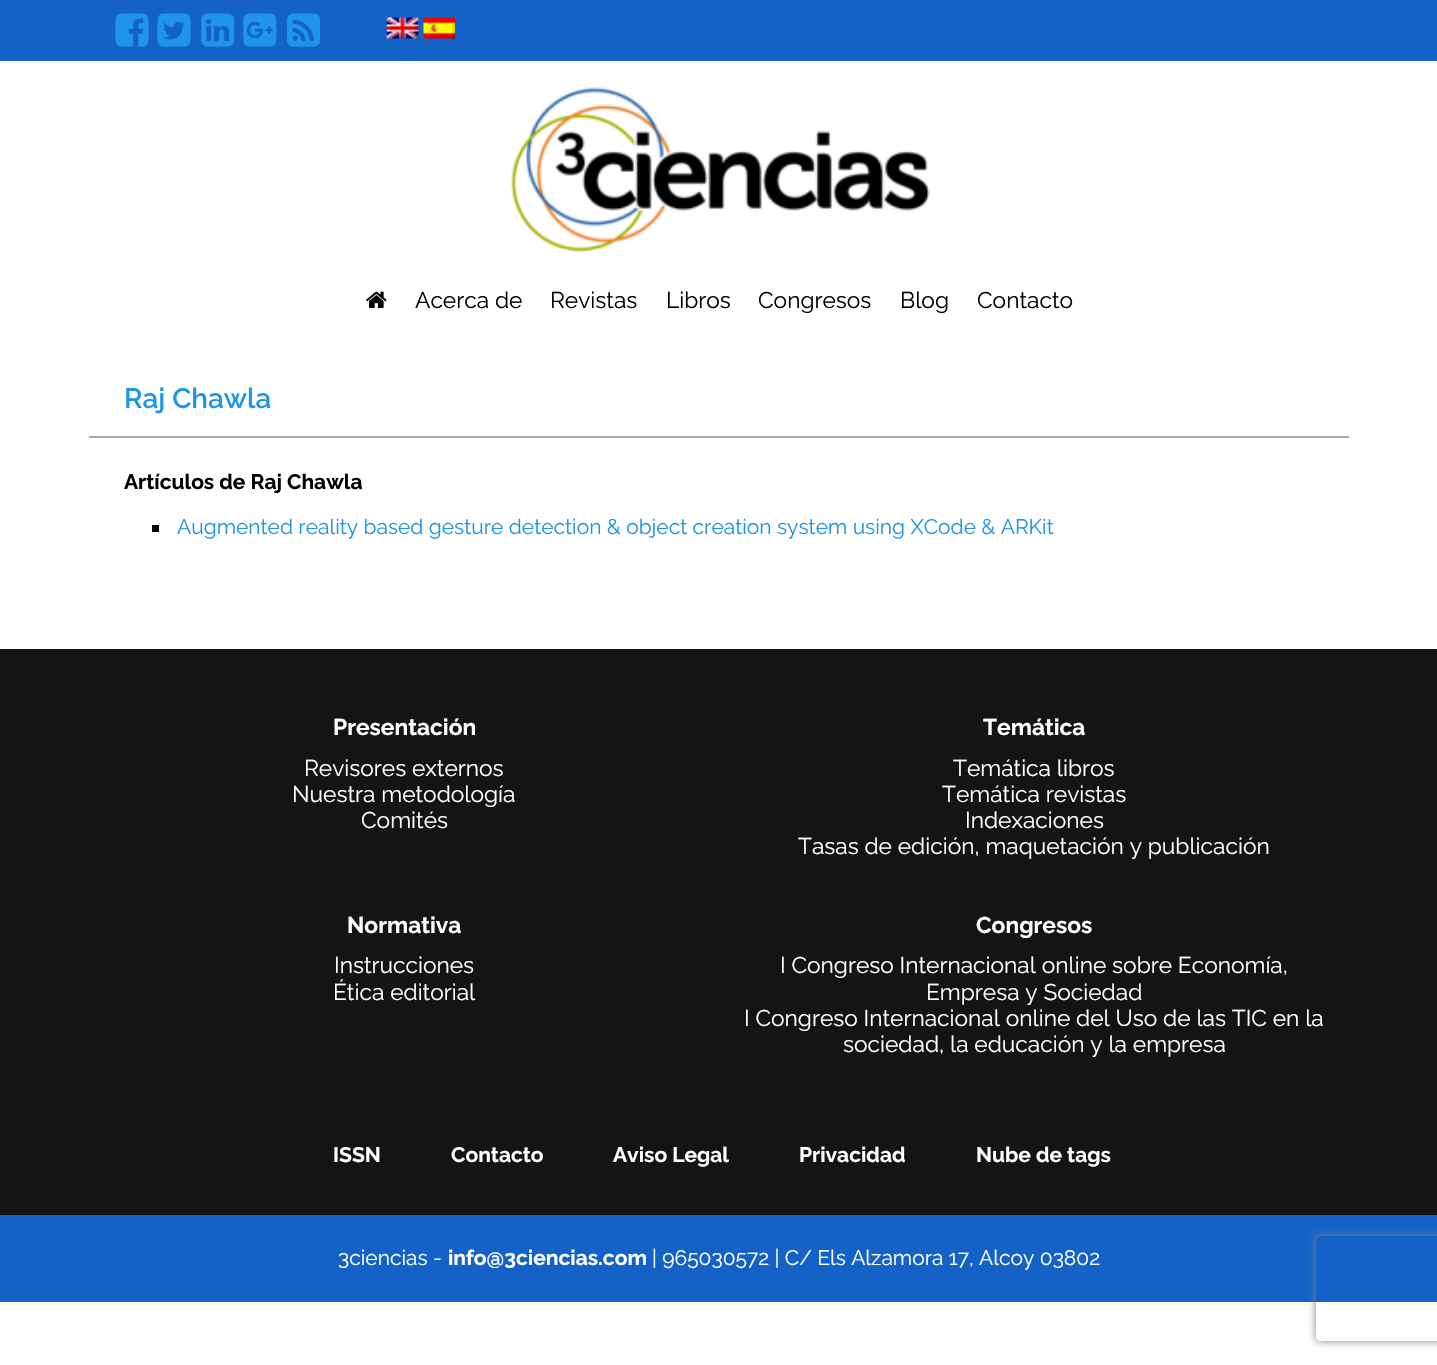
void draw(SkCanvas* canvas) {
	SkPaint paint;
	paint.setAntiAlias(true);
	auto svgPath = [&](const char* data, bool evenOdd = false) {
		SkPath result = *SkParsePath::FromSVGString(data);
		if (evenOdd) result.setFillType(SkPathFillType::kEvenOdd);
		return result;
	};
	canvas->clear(0xffffffff);
	paint.setColor(0xff1462c8);
	canvas->drawRect(SkRect::MakeXYWH(0, 0, 1437, 61), paint);
	canvas->drawImageRect(SkImages::DeferredFromEncodedData(SkData::MakeFromFileName("img1.png")), SkRect::MakeXYWH(115, 13, 34, 34), SkSamplingOptions());
	canvas->drawImageRect(SkImages::DeferredFromEncodedData(SkData::MakeFromFileName("img2.png")), SkRect::MakeXYWH(157, 13, 34, 34), SkSamplingOptions());
	canvas->drawImageRect(SkImages::DeferredFromEncodedData(SkData::MakeFromFileName("img3.png")), SkRect::MakeXYWH(201, 13, 34, 34), SkSamplingOptions());
	canvas->drawImageRect(SkImages::DeferredFromEncodedData(SkData::MakeFromFileName("img4.png")), SkRect::MakeXYWH(243, 13, 34, 34), SkSamplingOptions());
	canvas->drawImageRect(SkImages::DeferredFromEncodedData(SkData::MakeFromFileName("img5.png")), SkRect::MakeXYWH(287, 13, 33, 34), SkSamplingOptions());
	canvas->drawImageRect(SkImages::DeferredFromEncodedData(SkData::MakeFromFileName("img6.png")), SkRect::MakeXYWH(386, 17, 33, 22), SkSamplingOptions());
	canvas->drawImageRect(SkImages::DeferredFromEncodedData(SkData::MakeFromFileName("img7.png")), SkRect::MakeXYWH(423, 17, 32, 22), SkSamplingOptions());
	canvas->drawImageRect(SkImages::DeferredFromEncodedData(SkData::MakeFromFileName("img8.png")), SkRect::MakeXYWH(510, 87, 420, 165), SkSamplingOptions());
	canvas->drawImageRect(SkImages::DeferredFromEncodedData(SkData::MakeFromFileName("img9.png")), SkRect::MakeXYWH(366, 291, 21, 17), SkSamplingOptions());
	SkFont f1(fontMgr->matchFamilyStyle("Raleway", SkFontStyle::Normal()), 22.75);
	f1.setSubpixel(true);
	paint.setColor(0xff000000);
	canvas->drawString("Acerca de", 415, 308, f1, paint);
	canvas->drawString("Revistas", 550, 308, f1, paint);
	canvas->drawString("Libros", 666, 308, f1, paint);
	canvas->drawString("Congresos", 758, 308, f1, paint);
	canvas->drawString("Blog", 900, 308, f1, paint);
	canvas->drawString("Contacto", 977, 308, f1, paint);
	paint.setColor(0xffaba9a8);
	canvas->drawRect(SkRect::MakeXYWH(89, 436, 1260, 2), paint);
	SkFont f2(fontMgr->matchFamilyStyle("Raleway", SkFontStyle(600, SkFontStyle::kNormal_Width, SkFontStyle::kUpright_Slant)), 28);
	f2.setSubpixel(true);
	paint.setColor(0xff1e95e8);
	canvas->drawString("Raj Chawla", 124, 408, f2, paint);
	SkFont f3(fontMgr->matchFamilyStyle("Raleway", SkFontStyle::Bold()), 21);
	f3.setSubpixel(true);
	paint.setColor(0xff000000);
	canvas->drawString("Artículos de Raj Chawla", 124, 489, f3, paint);
	canvas->drawRect(SkRect::MakeXYWH(152, 525, 7, 7), paint);
	SkFont f4(fontMgr->matchFamilyStyle("Raleway", SkFontStyle::Normal()), 21);
	f4.setSubpixel(true);
	paint.setColor(0xff1e95e8);
	canvas->drawString("Augmented reality based gesture detection & object creation system using XCode & ARKit", 177, 534, f4, paint);
	paint.setColor(0xff141414);
	canvas->drawRect(SkRect::MakeXYWH(0, 649, 1437, 566), paint);
	SkFont f5(fontMgr->matchFamilyStyle("Raleway", SkFontStyle::Bold()), 22.75);
	f5.setSubpixel(true);
	paint.setColor(0xffffffff);
	canvas->drawString("Presentación", 333, 735, f5, paint);
	canvas->drawString("Revisores externos", 304, 776, f1, paint);
	canvas->drawString("Nuestra metodología", 292, 802, f1, paint);
	canvas->drawString("Comités", 361, 828, f1, paint);
	canvas->drawString("Temática", 983, 735, f5, paint);
	canvas->drawString("Temática libros", 953, 776, f1, paint);
	canvas->drawString("Temática revistas", 942, 802, f1, paint);
	canvas->drawString("Indexaciones", 965, 828, f1, paint);
	canvas->drawString("Tasas de edición, maquetación y publicación", 798, 854, f1, paint);
	canvas->drawString("Normativa", 347, 933, f5, paint);
	canvas->drawString("Instrucciones", 334, 973, f1, paint);
	canvas->drawString("Ética editorial", 333, 1000, f1, paint);
	canvas->drawString("Congresos", 976, 933, f5, paint);
	canvas->drawString("I Congreso Internacional online sobre Economía,", 780, 973, f1, paint);
	canvas->drawString("Empresa y Sociedad", 926, 1000, f1, paint);
	canvas->drawString("I Congreso Internacional online del Uso de las TIC en la", 744, 1026, f1, paint);
	canvas->drawString("sociedad, la educación y la empresa", 843, 1052, f1, paint);
	canvas->drawString("ISSN", 333, 1162, f3, paint);
	canvas->drawString("Contacto", 451, 1162, f3, paint);
	canvas->drawString("Aviso Legal", 613, 1162, f3, paint);
	canvas->drawString("Privacidad", 799, 1162, f3, paint);
	canvas->drawString("Nube de tags", 976, 1162, f3, paint);
	paint.setColor(0xff1462c8);
	canvas->drawRect(SkRect::MakeXYWH(0, 1215, 1437, 87), paint);
	paint.setColor(0xffffffff);
	canvas->drawString("3ciencias -", 338, 1265, f4, paint);
	canvas->drawString("info@3ciencias.com", 448, 1265, f3, paint);
	canvas->drawString("| 965030572 | C/ Els Alzamora 17, Alcoy 03802", 652, 1265, f4, paint);
	canvas->save();
	canvas->clipPath(svgPath("M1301 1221H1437V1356H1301ZM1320 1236H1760C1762 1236 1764 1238 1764 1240V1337C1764 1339 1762 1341 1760 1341H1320C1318 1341 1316 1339 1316 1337V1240C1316 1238 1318 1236 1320 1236Z", true), true);
	paint.setColor(0xff808080);
	paint.setMaskFilter(SkMaskFilter::MakeBlur(kNormal_SkBlurStyle, 4.5));
	canvas->drawRoundRect(SkRect::MakeXYWH(1316, 1236, 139, 105), 4, 4, paint);
	paint.setMaskFilter(nullptr);
	canvas->restore();
}
